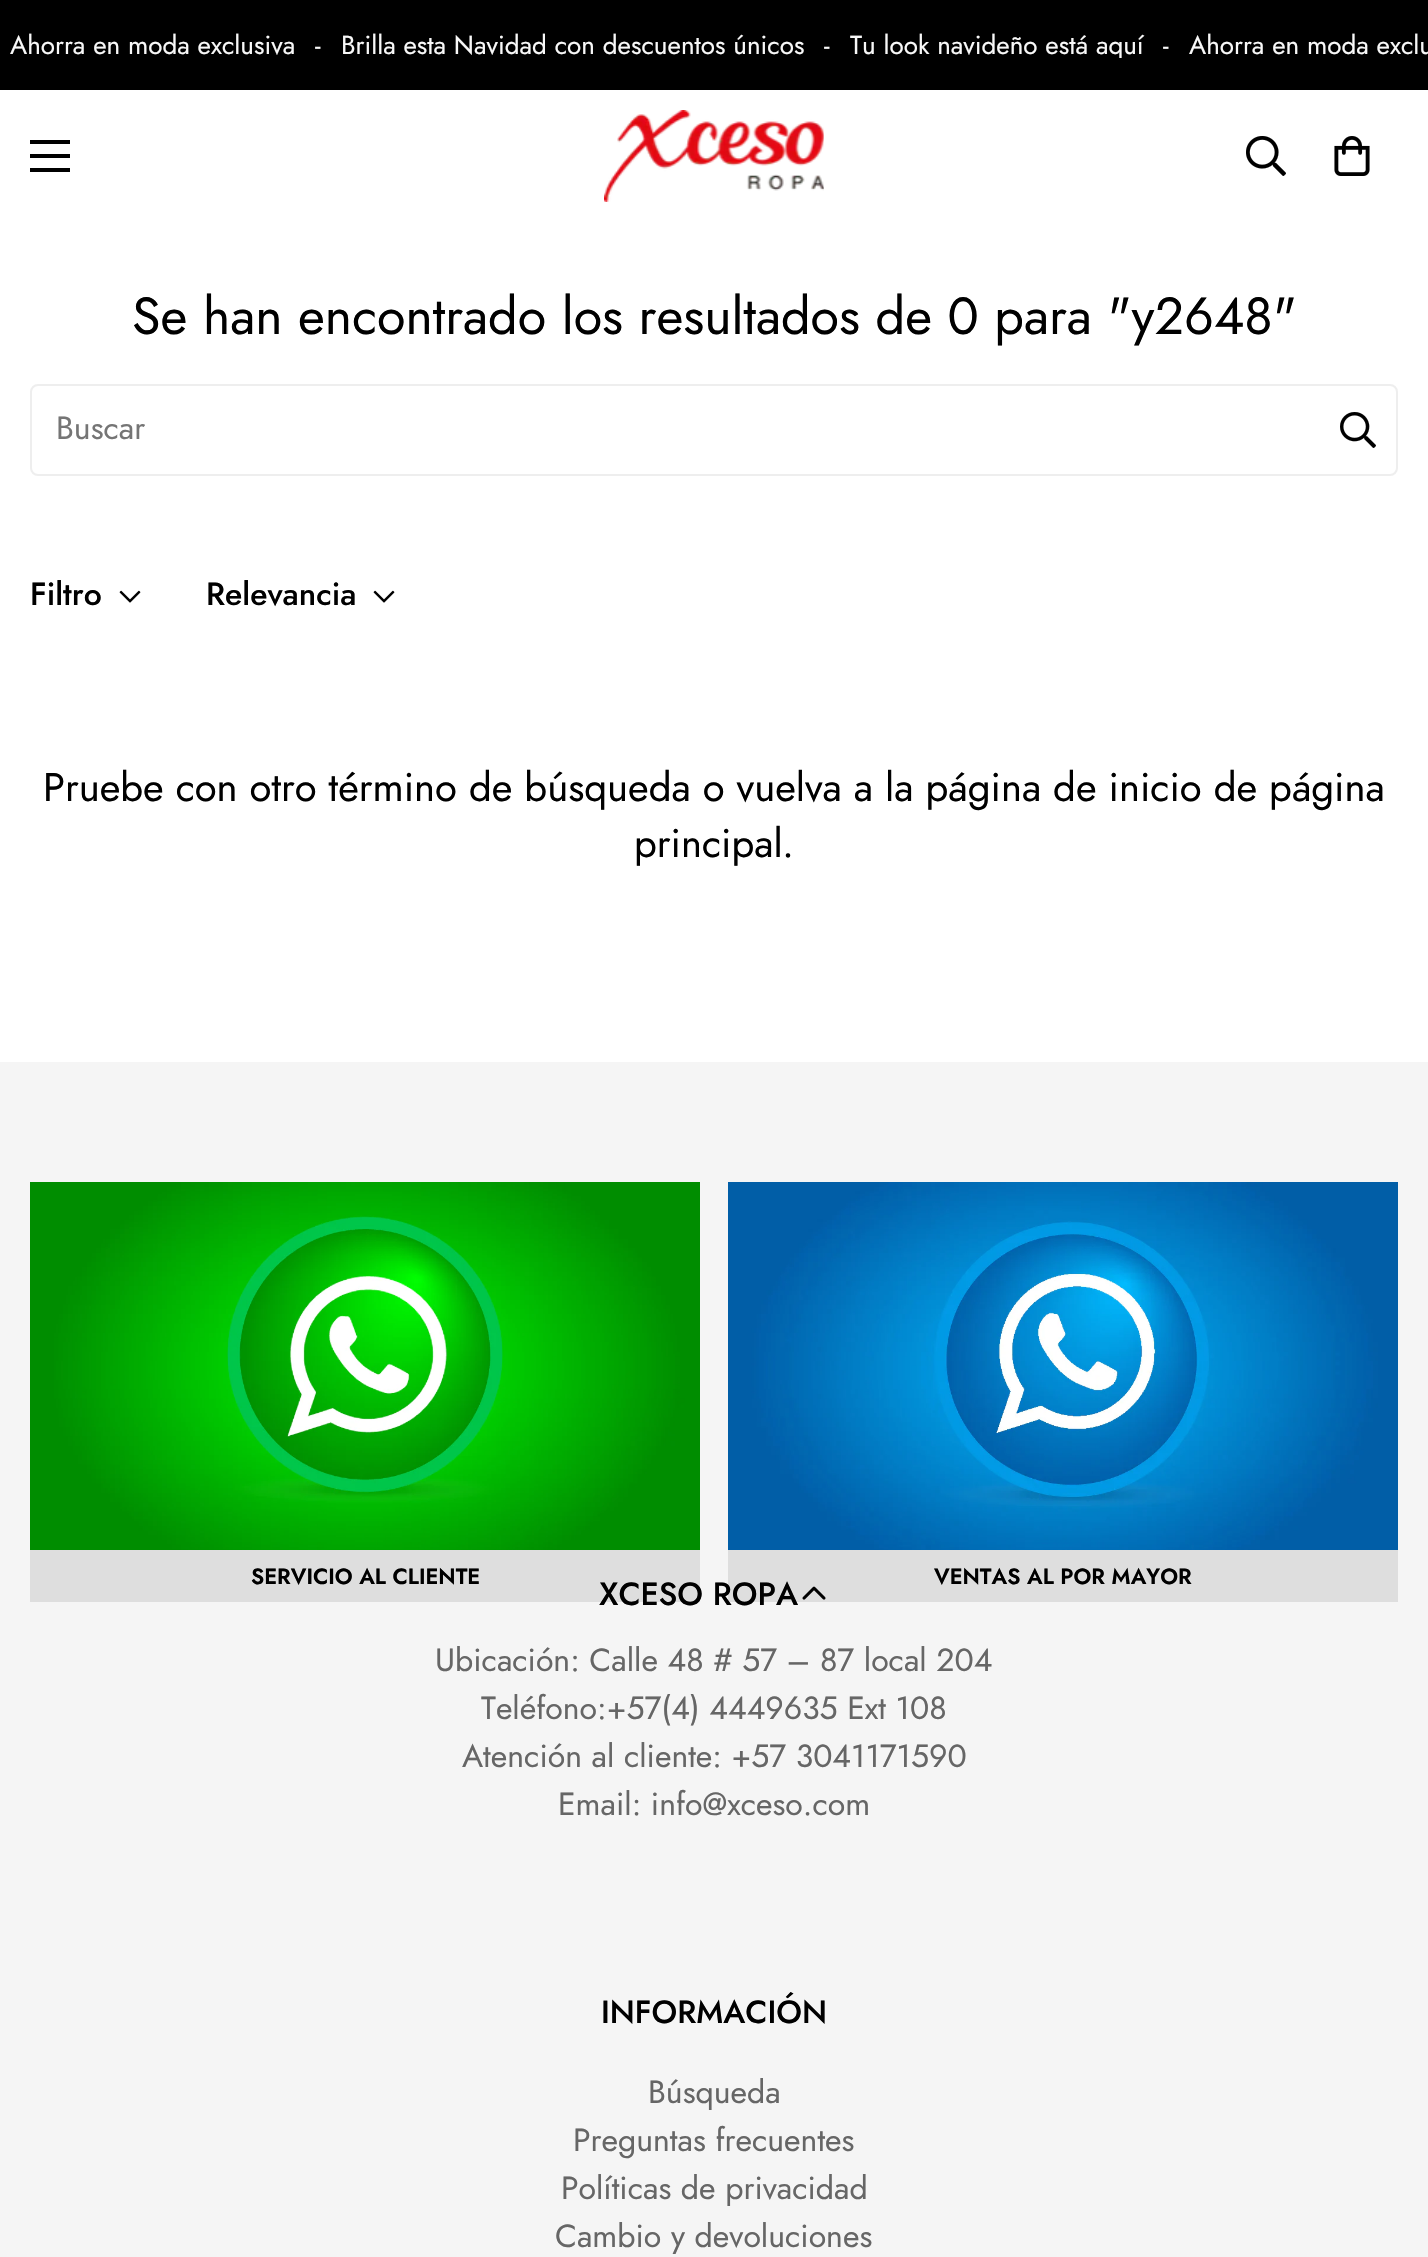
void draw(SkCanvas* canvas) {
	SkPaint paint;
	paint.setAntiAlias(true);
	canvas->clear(0xffffffff);
	paint.setColor(0xff000000);
	canvas->drawRect(SkRect::MakeXYWH(0, 0, 1428, 90), paint);
	SkFont f1(fontMgr->matchFamilyStyle("Jost", SkFontStyle::Normal()), 26);
	f1.setSubpixel(true);
	paint.setColor(0xfff8f8f8);
	canvas->drawString("Ahorra en moda exclusiva", 10, 54, f1, paint);
	canvas->drawString("-", 315, 54, f1, paint);
	canvas->drawString("Brilla esta Navidad con descuentos únicos", 341, 54, f1, paint);
	canvas->drawString("-", 824, 54, f1, paint);
	canvas->save();
	canvas->clipRect(SkRect::MakeXYWH(0, 32, 1428, 26));
	canvas->drawString("Tu look navideño está aquí", 850, 54, f1, paint);
	canvas->restore();
	canvas->drawString("-", 1163, 54, f1, paint);
	canvas->drawString("Ahorra en moda exclu", 1189, 54, f1, paint);
	paint.setColor(0xff000000);
	canvas->drawRect(SkRect::MakeXYWH(30, 154, 40, 4), paint);
	canvas->drawRect(SkRect::MakeXYWH(30, 140, 40, 4), paint);
	canvas->drawRect(SkRect::MakeXYWH(30, 168, 40, 4), paint);
	canvas->drawImageRect(SkImages::DeferredFromEncodedData(SkData::MakeFromFileName("img1.png")), SkRect::MakeXYWH(604, 110, 220, 92), SkSamplingOptions());
	canvas->drawImageRect(SkImages::DeferredFromEncodedData(SkData::MakeFromFileName("img2.png")), SkRect::MakeXYWH(1246, 136, 40, 40), SkSamplingOptions());
	canvas->drawImageRect(SkImages::DeferredFromEncodedData(SkData::MakeFromFileName("img3.png")), SkRect::MakeXYWH(1334, 136, 36, 40), SkSamplingOptions());
	SkFont f2(fontMgr->matchFamilyStyle("Jost", SkFontStyle::Normal()), 52);
	f2.setSubpixel(true);
	canvas->drawString("Se han encontrado los resultados de 0 para \"y2648\"", 132, 334, f2, paint);
	paint.setStroke(true);
	paint.setStrokeWidth(2);
	paint.setColor(0xffeeeeee);
	canvas->drawRoundRect(SkRect::MakeXYWH(31, 385, 1366, 90), 7, 7, paint);
	SkFont f3(fontMgr->matchFamilyStyle("Jost", SkFontStyle::Normal()), 32);
	f3.setSubpixel(true);
	paint.setStroke(false);
	paint.setColor(0xff757575);
	canvas->drawString("Buscar", 56, 439, f3, paint);
	canvas->drawImageRect(SkImages::DeferredFromEncodedData(SkData::MakeFromFileName("img4.png")), SkRect::MakeXYWH(1340, 412, 36, 36), SkSamplingOptions());
	SkFont f4(fontMgr->matchFamilyStyle("Jost", SkFontStyle(500, SkFontStyle::kNormal_Width, SkFontStyle::kUpright_Slant)), 32);
	f4.setSubpixel(true);
	paint.setColor(0xff000000);
	canvas->drawString("Filtro", 30, 605, f4, paint);
	canvas->drawImageRect(SkImages::DeferredFromEncodedData(SkData::MakeFromFileName("img5.png")), SkRect::MakeXYWH(119, 590, 22, 13), SkSamplingOptions());
	canvas->drawString("Relevancia", 206, 605, f4, paint);
	canvas->drawImageRect(SkImages::DeferredFromEncodedData(SkData::MakeFromFileName("img5.png")), SkRect::MakeXYWH(373, 590, 22, 13), SkSamplingOptions());
	SkFont f5(fontMgr->matchFamilyStyle("Jost", SkFontStyle::Normal()), 40);
	f5.setSubpixel(true);
	canvas->drawString("Pruebe con otro término de búsqueda o vuelva a la página de inicio de página", 43, 801, f5, paint);
	canvas->drawString("principal", 634, 857, f5, paint);
	canvas->drawString(".", 782, 857, f5, paint);
	paint.setColor(0xfff5f5f5);
	canvas->drawRect(SkRect::MakeXYWH(0, 1062, 1428, 1195), paint);
	canvas->drawImageRect(SkImages::DeferredFromEncodedData(SkData::MakeFromFileName("img6.png")), SkRect::MakeXYWH(30, 1182, 670, 368), SkSamplingOptions());
	paint.setColor(0xffdedede);
	canvas->drawRect(SkRect::MakeXYWH(30, 1550, 670, 52), paint);
	SkFont f6(fontMgr->matchFamilyStyle("Jost", SkFontStyle(600, SkFontStyle::kNormal_Width, SkFontStyle::kUpright_Slant)), 22);
	f6.setSubpixel(true);
	paint.setColor(0xff000000);
	canvas->drawString("SERVICIO AL CLIENTE", 251, 1584, f6, paint);
	canvas->drawImageRect(SkImages::DeferredFromEncodedData(SkData::MakeFromFileName("img7.png")), SkRect::MakeXYWH(728, 1182, 670, 368), SkSamplingOptions());
	paint.setColor(0xffdedede);
	canvas->drawRect(SkRect::MakeXYWH(728, 1550, 670, 52), paint);
	paint.setColor(0xff000000);
	canvas->drawString("VENTAS AL POR MAYOR", 934, 1584, f6, paint);
	canvas->drawString("XCESO ROPA", 599, 1605, f4, paint);
	canvas->drawImageRect(SkImages::DeferredFromEncodedData(SkData::MakeFromFileName("img8.png")), SkRect::MakeXYWH(802, 1586, 24, 14), SkSamplingOptions());
	paint.setColor(0xff666666);
	canvas->drawString("Ubicación: Calle 48 # 57 – 87 local 204", 435, 1671, f3, paint);
	canvas->drawString("Teléfono:+57(4) 4449635 Ext 108", 481, 1719, f3, paint);
	canvas->drawString("Atención al cliente: +57 3041171590", 462, 1767, f3, paint);
	canvas->drawString("Email: info@xceso.com", 558, 1815, f3, paint);
	paint.setColor(0xff000000);
	canvas->drawString("INFORMACIÓN", 601, 2023, f4, paint);
	paint.setColor(0xff666666);
	canvas->drawString("Búsqueda", 648, 2103, f3, paint);
	canvas->drawString("Preguntas frecuentes", 573, 2151, f3, paint);
	canvas->drawString("Políticas de privacidad", 561, 2199, f3, paint);
	canvas->drawString("Cambio y devoluciones", 555, 2247, f3, paint);
}
